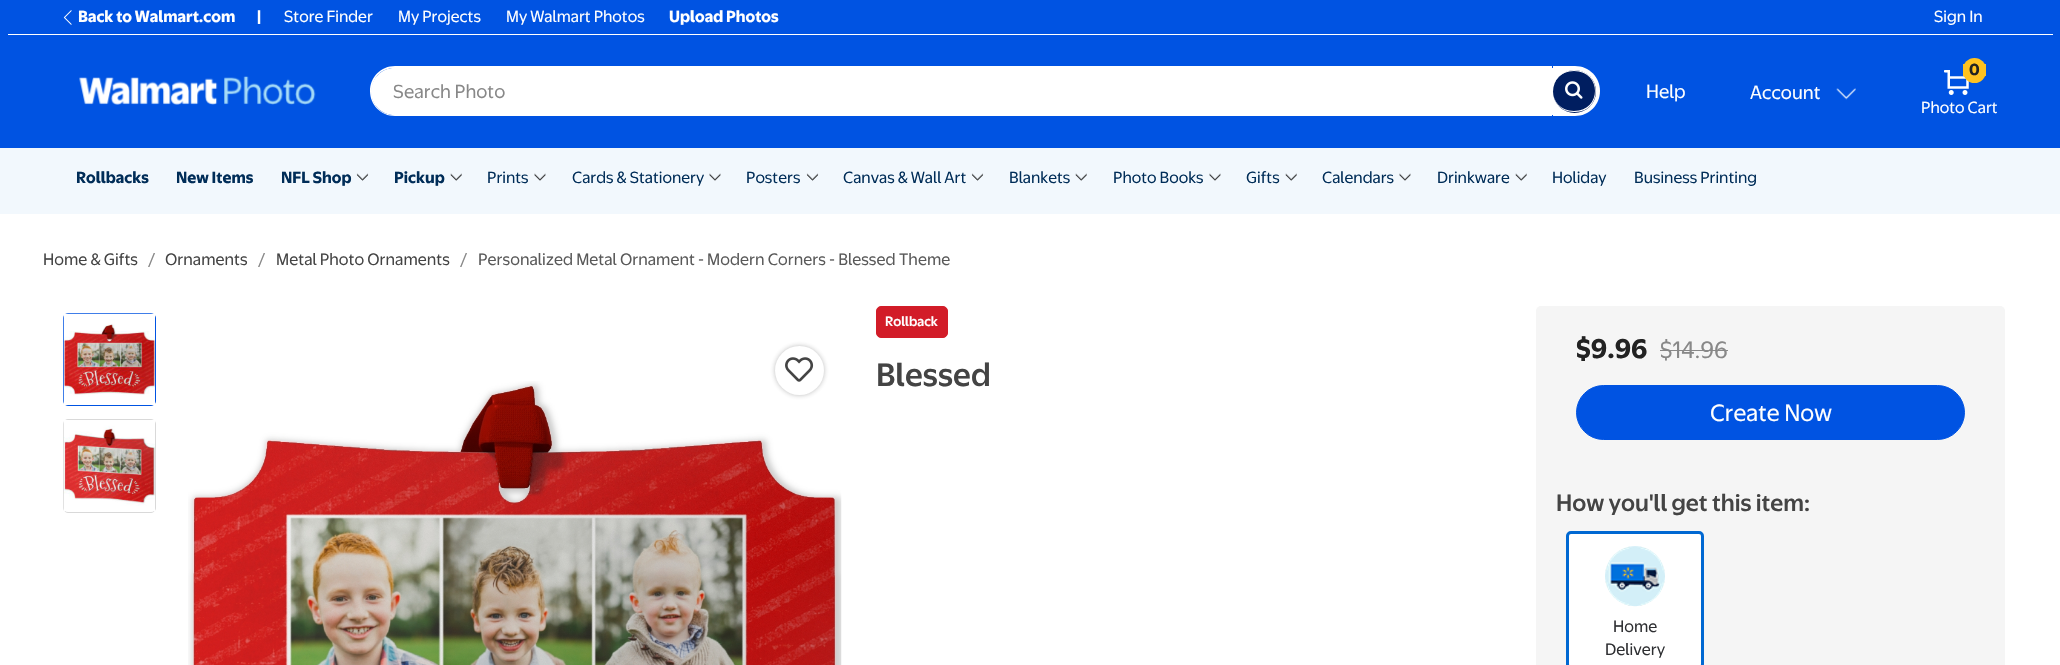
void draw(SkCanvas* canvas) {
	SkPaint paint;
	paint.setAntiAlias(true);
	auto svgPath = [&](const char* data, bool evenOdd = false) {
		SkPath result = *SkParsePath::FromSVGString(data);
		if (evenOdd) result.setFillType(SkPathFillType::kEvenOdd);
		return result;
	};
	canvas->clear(0xffffffff);
	paint.setColor(0xff0053e2);
	canvas->drawRect(SkRect::MakeXYWH(0, 0, 2060, 148), paint);
	paint.setColor(0xffffffff);
	canvas->drawRect(SkRect::MakeXYWH(8, 34, 2045, 1), paint);
	canvas->drawImageRect(SkImages::DeferredFromEncodedData(SkData::MakeFromFileName("img1.png")), SkRect::MakeXYWH(63, 10, 9, 15), SkSamplingOptions());
	SkFont f1(fontMgr->matchFamilyStyle("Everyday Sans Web", SkFontStyle::Bold()), 15);
	f1.setSubpixel(true);
	canvas->drawString("Back to Walmart.com", 78, 22, f1, paint);
	canvas->drawString("|", 257, 22, f1, paint);
	SkFont f2(fontMgr->matchFamilyStyle("Everyday Sans Web", SkFontStyle::Normal()), 15);
	f2.setSubpixel(true);
	canvas->drawString("Store Finder", 284, 22, f2, paint);
	canvas->drawString("My Projects", 398, 22, f2, paint);
	canvas->drawString("My Walmart Photos", 506, 22, f2, paint);
	canvas->drawString("Upload Photos", 669, 22, f1, paint);
	canvas->drawString("Sign In", 1934, 22, f2, paint);
	canvas->drawImageRect(SkImages::DeferredFromEncodedData(SkData::MakeFromFileName("img2.png")), SkRect::MakeXYWH(79, 76, 237, 29), SkSamplingOptions());
	canvas->drawPath(svgPath("M394.5 68H1553V115H394.5C381.5 115 371 104.5 371 91.5C371 78.5 381.5 68 394.5 68Z"), paint);
	canvas->drawPath(svgPath("M395 66H1552V116H395C381 116 370 105 370 91C370 77 381 66 395 66ZM395 68H1552V115H395C364 115 364 68 395 68Z", true), paint);
	SkFont f3(fontMgr->matchFamilyStyle("Everyday Sans Web", SkFontStyle::Normal()), 17.5);
	f3.setSubpixel(true);
	paint.setColor(0xff888888);
	canvas->drawString("Search Photo", 393, 98, f3, paint);
	paint.setColor(0xffffffff);
	canvas->drawPath(svgPath("M1553 66H1575C1589 66 1600 77 1600 91C1600 105 1589 116 1575 116H1553Z"), paint);
	paint.setColor(0xff001e60);
	canvas->drawCircle(1574.5, 91.5, 21.5, paint);
	paint.setColor(0xffffffff);
	canvas->drawPath(svgPath("M1574 70C1603 70 1603 113 1574 112C1546 112 1546 70 1574 70ZM1574 71C1602 71 1602 111 1574 111C1546 111 1546 71 1574 71Z", true), paint);
	canvas->drawImageRect(SkImages::DeferredFromEncodedData(SkData::MakeFromFileName("img3.png")), SkRect::MakeXYWH(1565, 81, 18, 18), SkSamplingOptions());
	canvas->drawString("Help", 1646, 98, f3, paint);
	canvas->drawString("Account", 1750, 99, f3, paint);
	canvas->drawImageRect(SkImages::DeferredFromEncodedData(SkData::MakeFromFileName("img4.png")), SkRect::MakeXYWH(1836, 88, 20, 12), SkSamplingOptions());
	canvas->drawImageRect(SkImages::DeferredFromEncodedData(SkData::MakeFromFileName("img5.png")), SkRect::MakeXYWH(1944, 70, 25, 25), SkSamplingOptions());
	paint.setColor(0xffffc220);
	canvas->drawRoundRect(SkRect::MakeXYWH(1963, 58, 23, 25), 11.5, 11.5, paint);
	canvas->drawRect(SkRect::MakeXYWH(1984, 64, 2, 12), paint);
	canvas->drawRect(SkRect::MakeXYWH(1963, 64, 2, 12), paint);
	paint.setColor(0xff222222);
	canvas->drawString("0", 1969, 75, f1, paint);
	paint.setColor(0xffffffff);
	canvas->drawString("Photo Cart", 1921, 113, f2, paint);
	paint.setColor(0xfff2f8fd);
	canvas->drawRect(SkRect::MakeXYWH(0, 148, 2060, 66), paint);
	paint.setColor(0xff002d58);
	canvas->drawString("Rollbacks", 76, 183, f1, paint);
	canvas->drawString("New Items", 176, 183, f1, paint);
	canvas->drawString("NFL Shop", 281, 183, f1, paint);
	canvas->drawImageRect(SkImages::DeferredFromEncodedData(SkData::MakeFromFileName("img6.png")), SkRect::MakeXYWH(356, 173, 13, 8), SkSamplingOptions());
	canvas->drawString("Pickup", 394, 183, f1, paint);
	canvas->drawImageRect(SkImages::DeferredFromEncodedData(SkData::MakeFromFileName("img7.png")), SkRect::MakeXYWH(450, 173, 12, 8), SkSamplingOptions());
	canvas->drawString("Prints", 487, 183, f2, paint);
	canvas->drawImageRect(SkImages::DeferredFromEncodedData(SkData::MakeFromFileName("img8.png")), SkRect::MakeXYWH(534, 173, 12, 8), SkSamplingOptions());
	canvas->drawString("Cards & Stationery", 572, 183, f2, paint);
	canvas->drawImageRect(SkImages::DeferredFromEncodedData(SkData::MakeFromFileName("img8.png")), SkRect::MakeXYWH(709, 173, 12, 8), SkSamplingOptions());
	canvas->drawString("Posters", 746, 183, f2, paint);
	canvas->drawImageRect(SkImages::DeferredFromEncodedData(SkData::MakeFromFileName("img6.png")), SkRect::MakeXYWH(806, 173, 13, 8), SkSamplingOptions());
	canvas->drawString("Canvas & Wall Art", 843, 183, f2, paint);
	canvas->drawImageRect(SkImages::DeferredFromEncodedData(SkData::MakeFromFileName("img6.png")), SkRect::MakeXYWH(971, 173, 13, 8), SkSamplingOptions());
	canvas->drawString("Blankets", 1009, 183, f2, paint);
	canvas->drawImageRect(SkImages::DeferredFromEncodedData(SkData::MakeFromFileName("img7.png")), SkRect::MakeXYWH(1075, 173, 12, 8), SkSamplingOptions());
	canvas->drawString("Photo Books", 1113, 183, f2, paint);
	canvas->drawImageRect(SkImages::DeferredFromEncodedData(SkData::MakeFromFileName("img8.png")), SkRect::MakeXYWH(1209, 173, 12, 8), SkSamplingOptions());
	canvas->drawString("Gifts", 1246, 183, f2, paint);
	canvas->drawImageRect(SkImages::DeferredFromEncodedData(SkData::MakeFromFileName("img7.png")), SkRect::MakeXYWH(1285, 173, 12, 8), SkSamplingOptions());
	canvas->drawString("Calendars", 1322, 183, f2, paint);
	canvas->drawImageRect(SkImages::DeferredFromEncodedData(SkData::MakeFromFileName("img8.png")), SkRect::MakeXYWH(1399, 173, 12, 8), SkSamplingOptions());
	canvas->drawString("Drinkware", 1437, 183, f2, paint);
	canvas->drawImageRect(SkImages::DeferredFromEncodedData(SkData::MakeFromFileName("img7.png")), SkRect::MakeXYWH(1515, 173, 12, 8), SkSamplingOptions());
	canvas->drawString("Holiday", 1552, 183, f2, paint);
	canvas->drawString("Business Printing", 1634, 183, f2, paint);
	SkFont f4(fontMgr->matchFamilyStyle("Everyday Sans Web", SkFontStyle::Normal()), 15.3);
	f4.setSubpixel(true);
	paint.setColor(0xff444444);
	canvas->drawString("Home & Gifts", 43, 265, f4, paint);
	paint.setColor(0xff888888);
	canvas->drawString("/", 148, 265, f4, paint);
	paint.setColor(0xff444444);
	canvas->drawString("Ornaments", 165, 265, f4, paint);
	paint.setColor(0xff888888);
	canvas->drawString("/", 258, 265, f4, paint);
	paint.setColor(0xff444444);
	canvas->drawString("Metal Photo Ornaments", 276, 265, f4, paint);
	paint.setColor(0xff888888);
	canvas->drawString("/", 460, 265, f4, paint);
	paint.setColor(0xff595959);
	canvas->drawString("Personalized Metal Ornament - Modern Corners - Blessed Theme", 478, 265, f4, paint);
	paint.setStroke(true);
	paint.setStrokeWidth(1);
	paint.setColor(0xff0053e2);
	canvas->drawRoundRect(SkRect::MakeXYWH(63.5, 313.5, 92, 92), 4.5, 4.5, paint);
	canvas->drawImageRect(SkImages::DeferredFromEncodedData(SkData::MakeFromFileName("img9.png")), SkRect::MakeXYWH(63, 313, 92, 92), SkSamplingOptions());
	paint.setColor(0xffd9d9d9);
	canvas->drawRoundRect(SkRect::MakeXYWH(63.5, 419.5, 92, 93), 4.5, 4.5, paint);
	canvas->drawImageRect(SkImages::DeferredFromEncodedData(SkData::MakeFromFileName("img10.png")), SkRect::MakeXYWH(63, 420, 92, 92), SkSamplingOptions());
	canvas->drawImageRect(SkImages::DeferredFromEncodedData(SkData::MakeFromFileName("img11.png")), SkRect::MakeXYWH(188, 381, 654, 284), SkSamplingOptions());
	paint.setStroke(false);
	paint.setColor(0x4d222222);
	paint.setMaskFilter(SkMaskFilter::MakeBlur(kNormal_SkBlurStyle, 2.5));
	canvas->drawRoundRect(SkRect::MakeXYWH(775, 346, 49, 49), 24.5, 24.5, paint);
	paint.setMaskFilter(nullptr);
	paint.setColor(0xffffffff);
	canvas->drawCircle(799.5, 370.5, 24.5, paint);
	canvas->drawImageRect(SkImages::DeferredFromEncodedData(SkData::MakeFromFileName("img12.png")), SkRect::MakeXYWH(785, 357, 29, 25), SkSamplingOptions());
	paint.setColor(0xffd21c28);
	canvas->drawRoundRect(SkRect::MakeXYWH(876.5, 306.5, 71, 31), 4.5, 4.5, paint);
	paint.setStroke(true);
	canvas->drawRoundRect(SkRect::MakeXYWH(876.5, 306.5, 71, 31), 4.5, 4.5, paint);
	SkFont f5(fontMgr->matchFamilyStyle("Everyday Sans Web", SkFontStyle(500, SkFontStyle::kNormal_Width, SkFontStyle::kUpright_Slant)), 12.5);
	f5.setSubpixel(true);
	paint.setStroke(false);
	paint.setColor(0xffffffff);
	canvas->drawString("Rollback", 885, 326, f5, paint);
	SkFont f6(fontMgr->matchFamilyStyle("Everyday Sans Web", SkFontStyle(500, SkFontStyle::kNormal_Width, SkFontStyle::kUpright_Slant)), 30);
	f6.setSubpixel(true);
	paint.setColor(0xff444444);
	canvas->drawString("Blessed", 876, 386, f6, paint);
	paint.setColor(0xfff5f5f5);
	canvas->drawRoundRect(SkRect::MakeXYWH(1536, 306, 469, 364), 5, 5, paint);
	SkFont f7(fontMgr->matchFamilyStyle("Everyday Sans Web", SkFontStyle::Bold()), 25);
	f7.setSubpixel(true);
	paint.setColor(0xff222222);
	canvas->drawString("$9.96", 1576, 358, f7, paint);
	SkFont f8(fontMgr->matchFamilyStyle("Everyday Sans Web", SkFontStyle::Normal()), 21.9);
	f8.setSubpixel(true);
	paint.setColor(0xff888888);
	canvas->drawString("$14.96", 1660, 358, f8, paint);
	canvas->drawRect(SkRect::MakeXYWH(1660, 350, 68, 1), paint);
	paint.setColor(0xff0053e2);
	canvas->drawRoundRect(SkRect::MakeXYWH(1576.5, 385.5, 388, 54), 27, 27, paint);
	paint.setStroke(true);
	canvas->drawRoundRect(SkRect::MakeXYWH(1576.5, 385.5, 388, 54), 27, 27, paint);
	paint.setStroke(false);
	paint.setColor(0xffffffff);
	canvas->drawString("Create Now", 1710, 421, f8, paint);
	SkFont f9(fontMgr->matchFamilyStyle("Everyday Sans Web", SkFontStyle(500, SkFontStyle::kNormal_Width, SkFontStyle::kUpright_Slant)), 21.9);
	f9.setSubpixel(true);
	paint.setColor(0xff444444);
	canvas->drawString("How you'll get this item:", 1556, 511, f9, paint);
	paint.setColor(0xffffffff);
	canvas->drawRoundRect(SkRect::MakeXYWH(1567.5, 532.5, 135, 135), 3.5, 3.5, paint);
	paint.setStroke(true);
	paint.setStrokeWidth(3);
	paint.setColor(0xff0068d2);
	canvas->drawRoundRect(SkRect::MakeXYWH(1567.5, 532.5, 135, 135), 3.5, 3.5, paint);
	paint.setStroke(false);
	paint.setColor(0xffe9f8fc);
	canvas->drawCircle(1635, 576, 30, paint);
	canvas->drawImageRect(SkImages::DeferredFromEncodedData(SkData::MakeFromFileName("img13.png")), SkRect::MakeXYWH(1605, 546, 60, 61), SkSamplingOptions());
	paint.setColor(0xff2e2f32);
	canvas->drawString("Home", 1613, 632, f4, paint);
	canvas->drawString("Delivery", 1605, 655, f4, paint);
}
